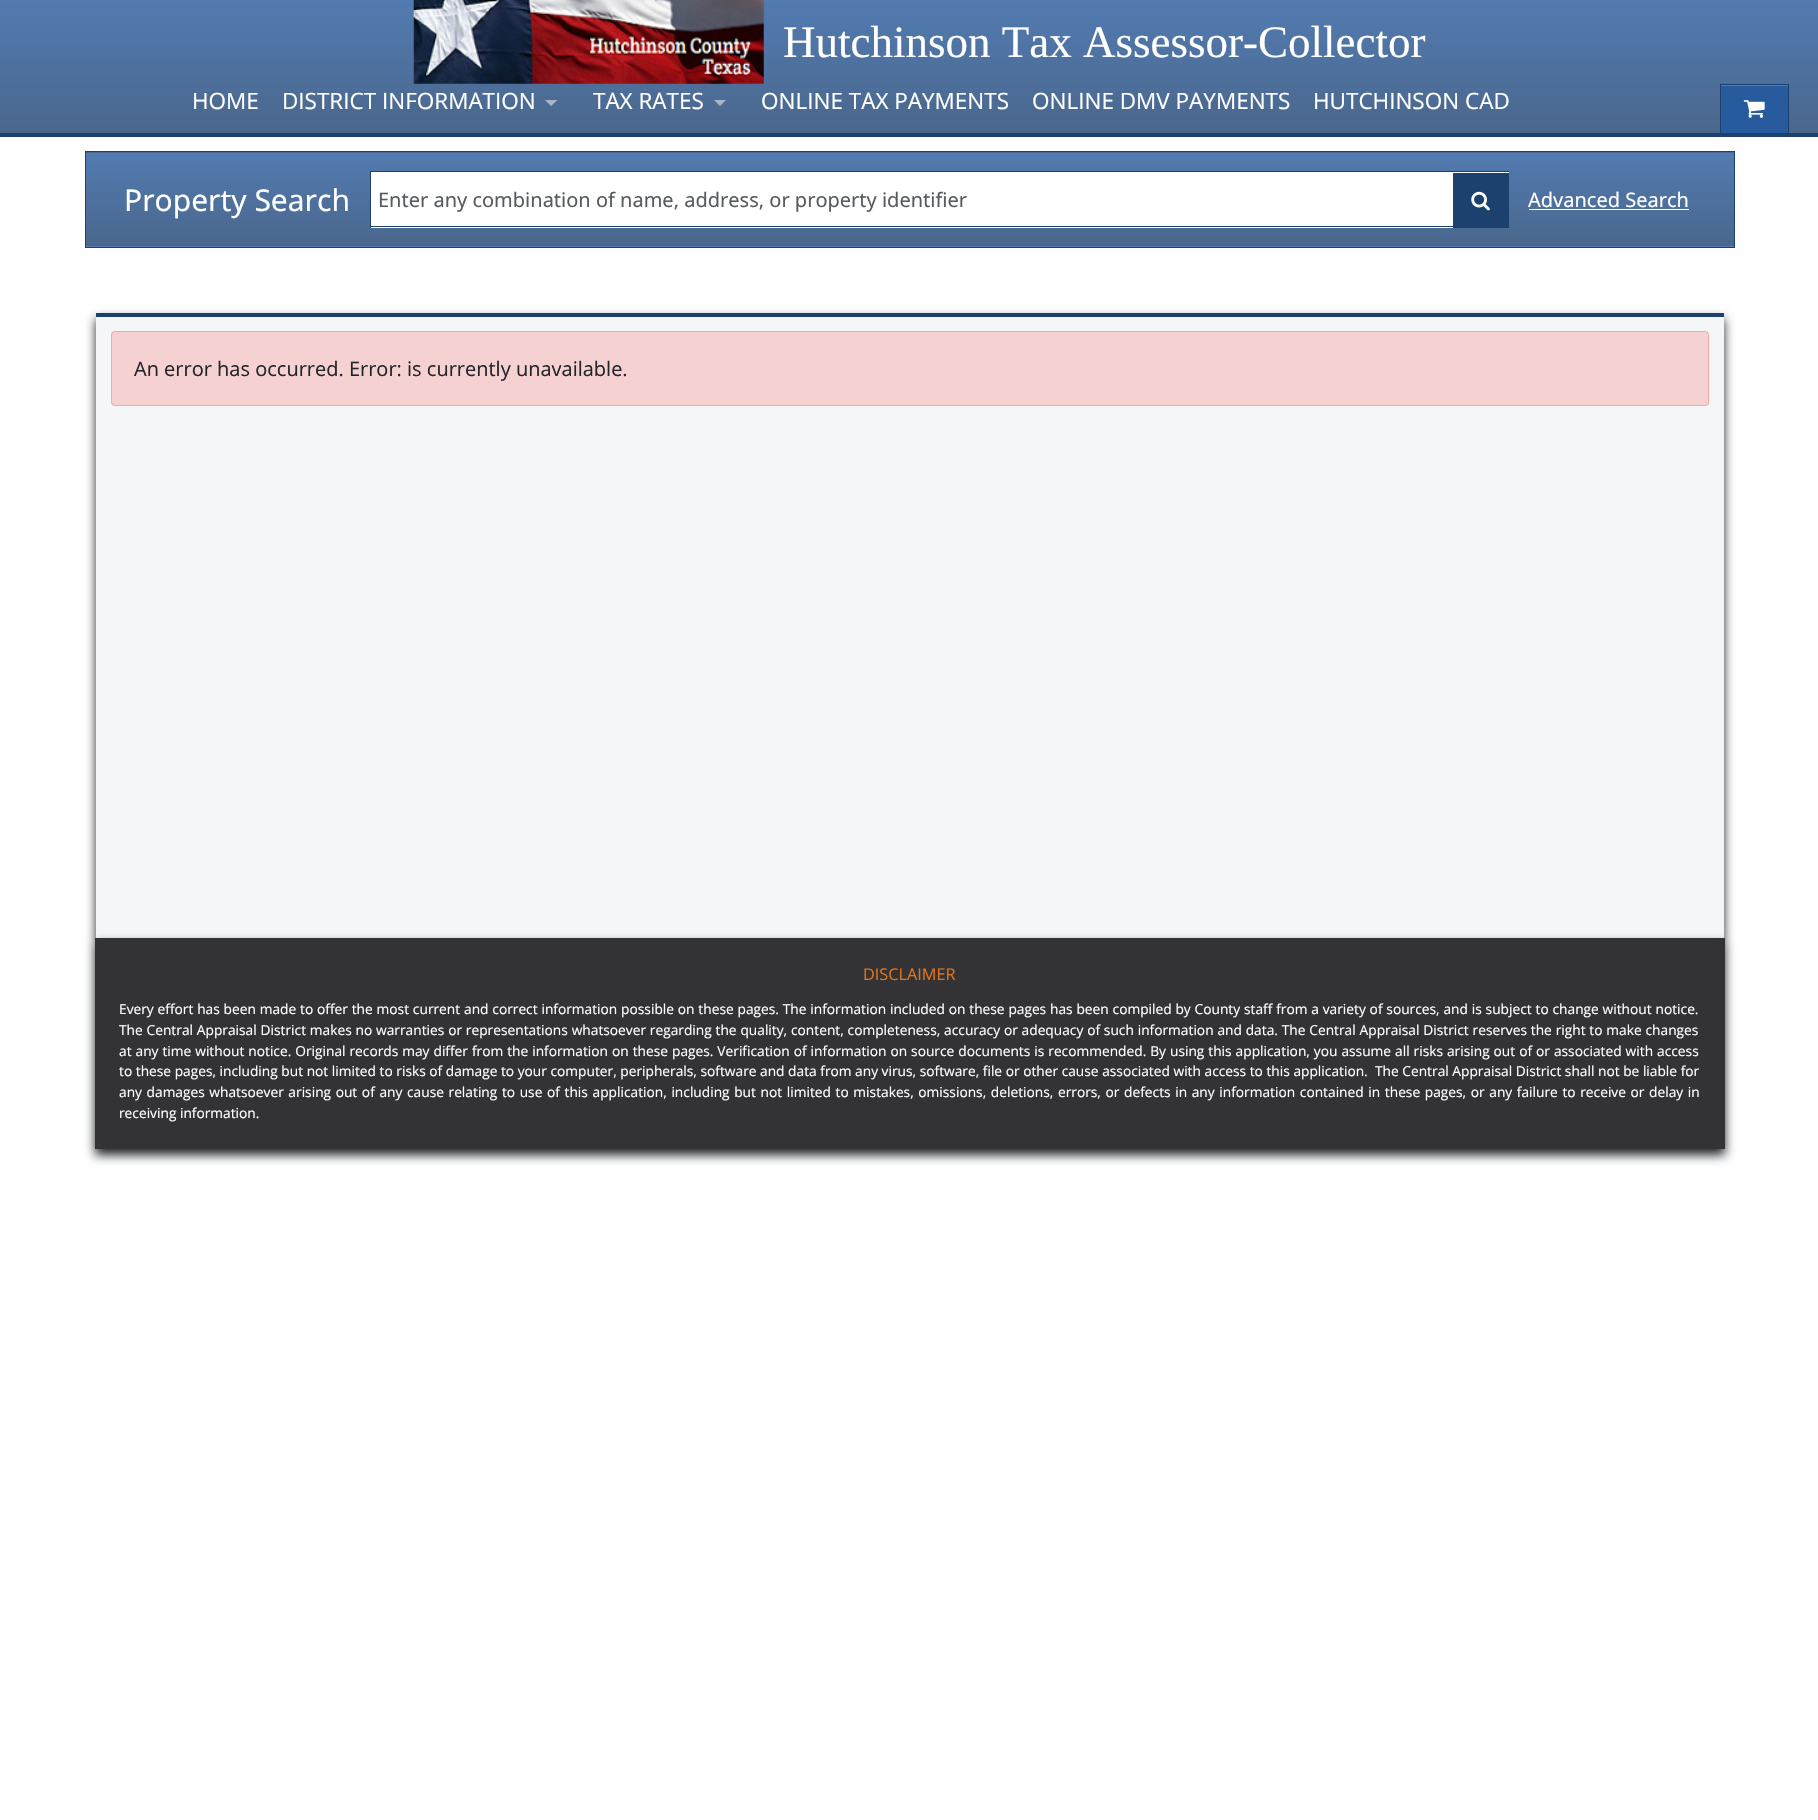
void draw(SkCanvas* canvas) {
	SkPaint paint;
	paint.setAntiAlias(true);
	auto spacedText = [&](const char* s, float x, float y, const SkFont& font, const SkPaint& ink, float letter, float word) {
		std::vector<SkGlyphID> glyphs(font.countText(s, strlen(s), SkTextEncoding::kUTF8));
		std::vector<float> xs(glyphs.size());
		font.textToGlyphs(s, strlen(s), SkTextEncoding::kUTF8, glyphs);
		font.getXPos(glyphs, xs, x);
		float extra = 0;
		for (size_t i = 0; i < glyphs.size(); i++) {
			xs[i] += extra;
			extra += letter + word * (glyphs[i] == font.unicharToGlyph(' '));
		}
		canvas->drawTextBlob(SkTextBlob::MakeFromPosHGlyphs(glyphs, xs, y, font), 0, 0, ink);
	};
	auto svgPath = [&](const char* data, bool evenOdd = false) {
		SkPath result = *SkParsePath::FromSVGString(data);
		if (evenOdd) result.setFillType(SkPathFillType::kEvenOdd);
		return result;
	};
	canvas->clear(0xffffffff);
	{
		const SkColor colors[] = {0xff527bb1, 0xff4a678c};
		const float stops[] = {0, 1};
		const SkPoint ends[] = {{909, 0}, {909, 133}};
		paint.setShader(SkGradientShader::MakeLinear(ends, colors, stops, 2, SkTileMode::kClamp));
		paint.setAlpha(255);
	}
	canvas->drawRect(SkRect::MakeXYWH(0, 0, 1818, 133), paint);
	paint.setShader(nullptr);
	paint.setColor(0xff1c416f);
	canvas->drawRect(SkRect::MakeXYWH(0, 133, 1818, 4), paint);
	canvas->drawImageRect(SkImages::DeferredFromEncodedData(SkData::MakeFromFileName("img1.png")), SkRect::MakeXYWH(413, 0, 351, 84), SkSamplingOptions());
	SkFont f1(fontMgr->matchFamilyStyle("Liberation Serif", SkFontStyle::Normal()), 45);
	f1.setSubpixel(true);
	paint.setColor(0xffffffff);
	canvas->drawString("Hutchinson Tax Assessor-Collector", 783, 57, f1, paint);
	SkFont f2(fontMgr->matchFamilyStyle("Open Sans", SkFontStyle::Normal()), 22.5);
	f2.setSubpixel(true);
	canvas->drawString("HOME", 192, 109, f2, paint);
	canvas->drawString("DISTRICT INFORMATION", 282, 109, f2, paint);
	paint.setColor(0xffa6b5ca);
	canvas->drawPath(svgPath("M545 100H557.5L551 106Z"), paint);
	paint.setColor(0xffffffff);
	canvas->drawString("TAX RATES", 593, 109, f2, paint);
	paint.setColor(0xffa6b5ca);
	canvas->drawPath(svgPath("M714 100H726L720 106Z"), paint);
	paint.setColor(0xffffffff);
	canvas->drawString("ONLINE TAX PAYMENTS", 761, 109, f2, paint);
	canvas->drawString("ONLINE DMV PAYMENTS", 1032, 109, f2, paint);
	canvas->drawString("HUTCHINSON CAD", 1313, 109, f2, paint);
	paint.setColor(0xff1c416f);
	canvas->drawRect(SkRect::MakeXYWH(1720, 84, 69, 1), paint);
	canvas->drawRect(SkRect::MakeXYWH(1788, 84, 1, 49), paint);
	canvas->drawRect(SkRect::MakeXYWH(1720, 84, 1, 49), paint);
	paint.setColor(0xff275b9d);
	canvas->drawRect(SkRect::MakeXYWH(1721, 86, 67, 47), paint);
	paint.setColor(0xff4281d0);
	canvas->drawRect(SkRect::MakeXYWH(1721, 85, 67, 1), paint);
	canvas->drawImageRect(SkImages::DeferredFromEncodedData(SkData::MakeFromFileName("img2.png")), SkRect::MakeXYWH(1743, 100, 22, 18), SkSamplingOptions());
	{
		const SkColor colors[] = {0xff527bb1, 0xff49678c};
		const float stops[] = {0, 1};
		const SkPoint ends[] = {{910, 59}, {910, 153}};
		paint.setShader(SkGradientShader::MakeLinear(ends, colors, stops, 2, SkTileMode::kClamp));
		paint.setAlpha(255);
	}
	canvas->drawRect(SkRect::MakeXYWH(85, 152, 1650, 1), paint);
	{
		const SkColor colors[] = {0xff527bb1, 0xff4a678c};
		const float stops[] = {0, 1};
		const SkPoint ends[] = {{910, 152}, {910, 246}};
		paint.setShader(SkGradientShader::MakeLinear(ends, colors, stops, 2, SkTileMode::kClamp));
		paint.setAlpha(255);
	}
	canvas->drawRect(SkRect::MakeXYWH(86, 153, 1648, 93), paint);
	{
		const SkColor colors[] = {0xff527bb1, 0xff49678c};
		const float stops[] = {0, 1};
		const SkPoint ends[] = {{910, 246}, {910, 340}};
		paint.setShader(SkGradientShader::MakeLinear(ends, colors, stops, 2, SkTileMode::kClamp));
		paint.setAlpha(255);
	}
	canvas->drawRect(SkRect::MakeXYWH(85, 246, 1650, 1), paint);
	paint.setStroke(true);
	paint.setStrokeWidth(1);
	paint.setShader(nullptr);
	paint.setColor(0xff1c416f);
	canvas->drawRect(SkRect::MakeXYWH(85.5, 151.5, 1649, 96), paint);
	SkFont f3(fontMgr->matchFamilyStyle("Noto Sans", SkFontStyle::Normal()), 30);
	f3.setSubpixel(true);
	paint.setStroke(false);
	paint.setColor(0xffffffff);
	canvas->drawString("Property Search", 124, 211, f3, paint);
	canvas->drawRect(SkRect::MakeXYWH(371, 172, 1138, 56), paint);
	paint.setColor(0xff1c416f);
	canvas->drawRect(SkRect::MakeXYWH(370, 171, 1139, 1), paint);
	canvas->drawRect(SkRect::MakeXYWH(370, 226, 1083, 1), paint);
	canvas->drawRect(SkRect::MakeXYWH(370, 171, 1, 57), paint);
	SkFont f4(fontMgr->matchFamilyStyle("Noto Sans", SkFontStyle::Normal()), 20);
	f4.setSubpixel(true);
	paint.setColor(0xff595c5f);
	canvas->drawString("Enter any combination of name, address, or property identifier", 378, 207, f4, paint);
	paint.setColor(0xff1c416f);
	canvas->drawRect(SkRect::MakeXYWH(1453, 173, 56, 55), paint);
	canvas->drawImageRect(SkImages::DeferredFromEncodedData(SkData::MakeFromFileName("img3.png")), SkRect::MakeXYWH(1471, 191, 19, 20), SkSamplingOptions());
	paint.setColor(0xffffffff);
	canvas->drawString("Advanced Search", 1528, 207, f4, paint);
	canvas->drawRect(SkRect::MakeXYWH(1529, 209, 160, 1), paint);
	paint.setColor(0xff212529);
	paint.setMaskFilter(SkMaskFilter::MakeBlur(kNormal_SkBlurStyle, 5));
	canvas->drawRect(SkRect::MakeXYWH(96, 319, 1628, 625), paint);
	paint.setMaskFilter(nullptr);
	paint.setColor(0xfff4f6f7);
	canvas->drawRect(SkRect::MakeXYWH(96, 317, 1628, 621), paint);
	paint.setColor(0xff1c416f);
	canvas->drawRect(SkRect::MakeXYWH(96, 313, 1628, 4), paint);
	paint.setColor(0xfff6d1d2);
	canvas->drawRoundRect(SkRect::MakeXYWH(111, 331, 1598, 75), 4, 4, paint);
	paint.setStroke(true);
	paint.setColor(0x33ff0000);
	canvas->drawRoundRect(SkRect::MakeXYWH(111.5, 331.5, 1597, 74), 3.5, 3.5, paint);
	SkFont f5(fontMgr->matchFamilyStyle("Open Sans", SkFontStyle::Normal()), 20);
	f5.setSubpixel(true);
	paint.setStroke(false);
	paint.setColor(0xff212529);
	canvas->drawString("An error has occurred. Error: is currently unavailable.", 134, 376, f5, paint);
	paint.setMaskFilter(SkMaskFilter::MakeBlur(kNormal_SkBlurStyle, 5));
	canvas->drawRect(SkRect::MakeXYWH(95, 944, 1630, 211), paint);
	paint.setMaskFilter(nullptr);
	paint.setColor(0xff333336);
	canvas->drawRect(SkRect::MakeXYWH(95, 938, 1630, 211), paint);
	SkFont f6(fontMgr->matchFamilyStyle("Open Sans", SkFontStyle::Normal()), 16.25);
	f6.setSubpixel(true);
	paint.setColor(0xffe2751a);
	canvas->drawString("DISCLAIMER", 863, 980, f6, paint);
	SkFont f7(fontMgr->matchFamilyStyle("Open Sans", SkFontStyle::Normal()), 13.75);
	f7.setSubpixel(true);
	paint.setColor(0xffffffff);
	spacedText("Every effort has been made to offer the most current and correct information possible on these pages. The information included on these pages has been compiled by County staff from a variety of sources, and is subject to change without notice.", 119, 1014, f7, paint, 0, 0.25);
	spacedText("The Central Appraisal District makes no warranties or representations whatsoever regarding the quality, content, completeness, accuracy or adequacy of such information and data. The Central Appraisal District reserves the right to make changes", 119, 1035, f7, paint, 0, 0.25);
	spacedText("at any time without notice. Original records may differ from the information on these pages. Verification of information on source documents is recommended. By using this application, you assume all risks arising out of or associated with access", 119, 1056, f7, paint, 0, 0.4);
	canvas->drawString("to these pages, including but not limited to risks of damage to your computer, peripherals, software and data from any virus, software, file or other cause associated with access to this application.", 119, 1076, f7, paint);
	canvas->drawString("The Central Appraisal District shall not be liable for", 1375, 1076, f7, paint);
	spacedText("any damages whatsoever arising out of any cause relating to use of this application, including but not limited to mistakes, omissions, deletions, errors, or defects in any information contained in these pages, or any failure to receive or delay in", 119, 1097, f7, paint, 0, 1.05);
	canvas->drawString("receiving information.", 119, 1118, f7, paint);
}
